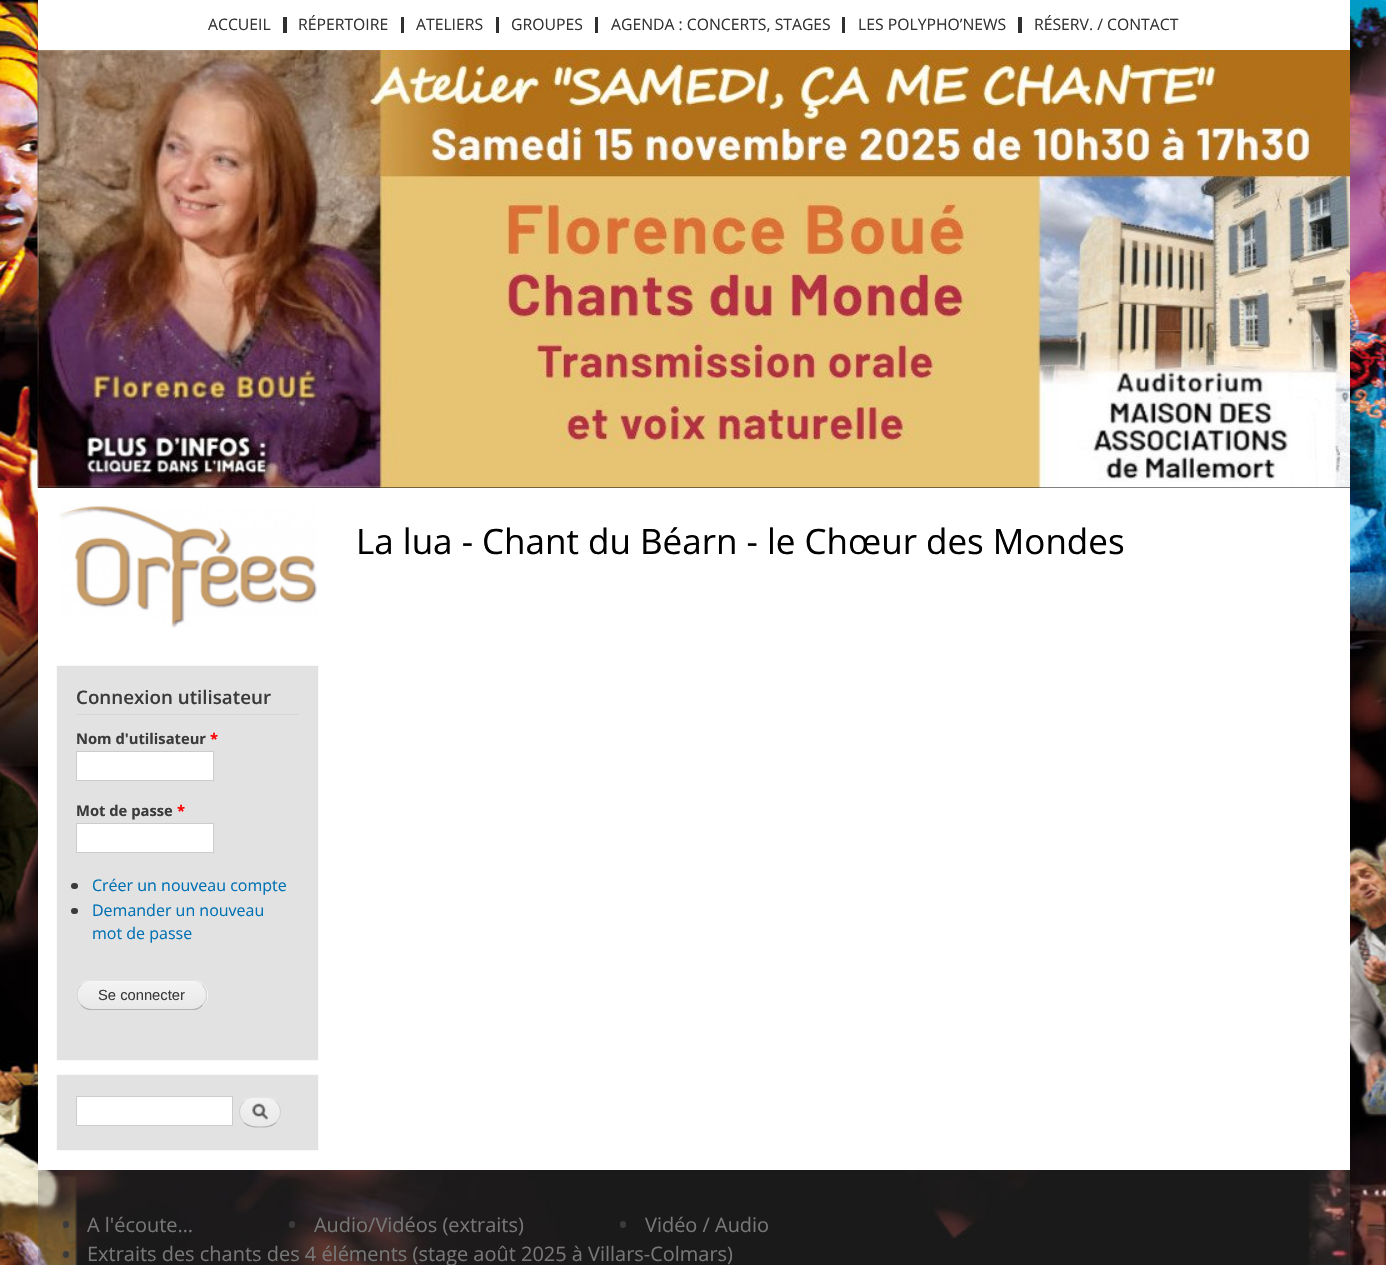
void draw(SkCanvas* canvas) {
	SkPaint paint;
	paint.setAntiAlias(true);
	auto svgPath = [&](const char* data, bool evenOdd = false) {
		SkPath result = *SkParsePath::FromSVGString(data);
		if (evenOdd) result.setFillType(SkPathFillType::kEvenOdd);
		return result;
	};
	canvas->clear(0xffffffff);
	canvas->drawImageRect(SkImages::DeferredFromEncodedData(SkData::MakeFromFileName("img1.png")), SkRect::MakeXYWH(0, 0, 1386, 1265), SkSamplingOptions());
	paint.setColor(0xffffffff);
	canvas->drawRect(SkRect::MakeXYWH(38, 0, 1312, 50), paint);
	paint.setColor(0xff303030);
	canvas->drawRect(SkRect::MakeXYWH(283, 17, 4, 16), paint);
	SkFont f1(fontMgr->matchFamilyStyle("Open Sans", SkFontStyle::Normal()), 15.75);
	f1.setSubpixel(true);
	paint.setColor(0xff333333);
	canvas->drawString("ACCUEIL", 208, 30, f1, paint);
	paint.setColor(0xff303030);
	canvas->drawRect(SkRect::MakeXYWH(401, 17, 3, 16), paint);
	paint.setColor(0xff333333);
	canvas->drawString("RÉPERTOIRE", 298, 30, f1, paint);
	paint.setColor(0xff303030);
	canvas->drawRect(SkRect::MakeXYWH(496, 17, 3, 16), paint);
	paint.setColor(0xff333333);
	canvas->drawString("ATELIERS", 416, 30, f1, paint);
	paint.setColor(0xff303030);
	canvas->drawRect(SkRect::MakeXYWH(595, 17, 3, 16), paint);
	paint.setColor(0xff333333);
	canvas->drawString("GROUPES", 511, 30, f1, paint);
	paint.setColor(0xff303030);
	canvas->drawRect(SkRect::MakeXYWH(842, 17, 3, 16), paint);
	paint.setColor(0xff333333);
	canvas->drawString("AGENDA : CONCERTS, STAGES", 611, 30, f1, paint);
	paint.setColor(0xff303030);
	canvas->drawRect(SkRect::MakeXYWH(1018, 17, 4, 16), paint);
	paint.setColor(0xff333333);
	canvas->drawString("LES POLYPHO’NEWS", 858, 30, f1, paint);
	canvas->drawString("RÉSERV. / CONTACT", 1034, 30, f1, paint);
	paint.setColor(0xff060400);
	canvas->drawRect(SkRect::MakeXYWH(38, 487, 1312, 1), paint);
	canvas->drawImageRect(SkImages::DeferredFromEncodedData(SkData::MakeFromFileName("img2.png")), SkRect::MakeXYWH(37, 50, 1313, 438), SkSamplingOptions());
	paint.setColor(0xffffffff);
	canvas->drawRect(SkRect::MakeXYWH(38, 488, 1312, 682), paint);
	SkFont f2(fontMgr->matchFamilyStyle("Open Sans", SkFontStyle::Normal()), 35);
	f2.setSubpixel(true);
	paint.setColor(0xff000000);
	canvas->drawString("La lua - Chant du Béarn - le Chœur des Mondes", 356, 554, f2, paint);
	canvas->drawImageRect(SkImages::DeferredFromEncodedData(SkData::MakeFromFileName("img3.png")), SkRect::MakeXYWH(59, 506, 259, 122), SkSamplingOptions());
	paint.setColor(0xffe2e2e2);
	canvas->drawRect(SkRect::MakeXYWH(56.5, 665.5, 262, 395), paint);
	paint.setStroke(true);
	paint.setStrokeWidth(1);
	paint.setColor(0xfff9f9f9);
	canvas->drawRect(SkRect::MakeXYWH(56.5, 665.5, 262, 395), paint);
	paint.setStroke(false);
	paint.setColor(0xffd6d6d6);
	canvas->drawRect(SkRect::MakeXYWH(76, 714, 223, 1), paint);
	SkFont f3(fontMgr->matchFamilyStyle("Open Sans", SkFontStyle(600, SkFontStyle::kNormal_Width, SkFontStyle::kUpright_Slant)), 18.75);
	f3.setSubpixel(true);
	paint.setColor(0xff3b3b3b);
	canvas->drawString("Connexion utilisateur", 76, 704, f3, paint);
	SkFont f4(fontMgr->matchFamilyStyle("Open Sans", SkFontStyle::Bold()), 14.75);
	f4.setSubpixel(true);
	canvas->drawString("Nom d'utilisateur", 76, 744, f4, paint);
	paint.setColor(0xffff0000);
	canvas->drawString("*", 210, 744, f4, paint);
	paint.setColor(0xffffffff);
	canvas->drawRect(SkRect::MakeXYWH(76.5, 751.5, 137, 29), paint);
	paint.setStroke(true);
	paint.setColor(0xffcccccc);
	canvas->drawRect(SkRect::MakeXYWH(76.5, 751.5, 137, 29), paint);
	paint.setStroke(false);
	paint.setColor(0xff3b3b3b);
	canvas->drawString("Mot de passe", 76, 816, f4, paint);
	paint.setColor(0xffff0000);
	canvas->drawString("*", 177, 816, f4, paint);
	paint.setColor(0xffffffff);
	canvas->drawRect(SkRect::MakeXYWH(76.5, 823.5, 137, 29), paint);
	paint.setStroke(true);
	paint.setColor(0xffcccccc);
	canvas->drawRect(SkRect::MakeXYWH(76.5, 823.5, 137, 29), paint);
	paint.setStroke(false);
	paint.setColor(0xff3b3b3b);
	canvas->drawRoundRect(SkRect::MakeXYWH(71, 883, 7, 6), 3, 3, paint);
	SkFont f5(fontMgr->matchFamilyStyle("Open Sans", SkFontStyle::Normal()), 16);
	f5.setSubpixel(true);
	paint.setColor(0xff0071b3);
	canvas->drawString("Créer un nouveau compte", 92, 891, f5, paint);
	paint.setColor(0xff3b3b3b);
	canvas->drawRoundRect(SkRect::MakeXYWH(71, 908, 7, 6), 3, 3, paint);
	paint.setColor(0xff0071b3);
	canvas->drawString("Demander un nouveau", 92, 916, f5, paint);
	canvas->drawString("mot de passe", 92, 939, f5, paint);
	paint.setColor(0xffffffff);
	canvas->drawRoundRect(SkRect::MakeXYWH(76, 980, 132, 30), 15, 15, paint);
	canvas->drawImageRect(SkImages::DeferredFromEncodedData(SkData::MakeFromFileName("img4.png")), SkRect::MakeXYWH(76, 981, 131, 29), SkSamplingOptions());
	paint.setStroke(true);
	paint.setStrokeWidth(1.2);
	paint.setColor(0xffe4e4e4);
	canvas->drawPath(svgPath("M81 985C84 982 87.5 980.5 91 980.5H192.5C196.5 980.5 200 982 202.5 985"), paint);
	paint.setColor(0xffd2d2d2);
	canvas->drawPath(svgPath("M202.5 985C208 990.5 208 999.5 202.5 1005"), paint);
	paint.setColor(0xffb4b4b4);
	canvas->drawPath(svgPath("M202.5 1005C200 1008 196.5 1009.5 192.5 1009.5H91C87.5 1009.5 84 1008 81 1005"), paint);
	paint.setColor(0xffd2d2d2);
	canvas->drawPath(svgPath("M81 1005C75.5 999.5 75.5 990.5 81 985"), paint);
	SkFont f6(fontMgr->matchFamilyStyle("Liberation Sans", SkFontStyle::Normal()), 14.75);
	f6.setSubpixel(true);
	paint.setStroke(false);
	paint.setColor(0xff3b3b3b);
	canvas->drawString("Se connecter", 98, 1000, f6, paint);
	paint.setColor(0xffe2e2e2);
	canvas->drawRect(SkRect::MakeXYWH(56.5, 1074.5, 262, 76), paint);
	paint.setStroke(true);
	paint.setStrokeWidth(1);
	paint.setColor(0xfff9f9f9);
	canvas->drawRect(SkRect::MakeXYWH(56.5, 1074.5, 262, 76), paint);
	paint.setStroke(false);
	paint.setColor(0xffffffff);
	canvas->drawRect(SkRect::MakeXYWH(76.5, 1096.5, 156, 29), paint);
	paint.setStroke(true);
	paint.setColor(0xffcccccc);
	canvas->drawRect(SkRect::MakeXYWH(76.5, 1096.5, 156, 29), paint);
	canvas->drawImageRect(SkImages::DeferredFromEncodedData(SkData::MakeFromFileName("img5.png")), SkRect::MakeXYWH(239, 1097, 42, 30), SkSamplingOptions());
	paint.setStrokeWidth(1.2);
	paint.setColor(0xffe4e4e4);
	canvas->drawPath(svgPath("M244 1101.5C248.5 1096.5 254 1097 260 1097C266 1097 271.5 1096.5 276 1101.5"), paint);
	paint.setColor(0xffd2d2d2);
	canvas->drawPath(svgPath("M276 1101.5C282 1107 282 1116.5 276 1122.5"), paint);
	paint.setColor(0xffb4b4b4);
	canvas->drawPath(svgPath("M276 1122.5C271.5 1127 266 1127 260 1127C254 1127 248.5 1127 244 1122.5"), paint);
	paint.setColor(0xffd2d2d2);
	canvas->drawPath(svgPath("M244 1122.5C238 1116.5 238 1107 244 1101.5"), paint);
	paint.setStroke(false);
	paint.setColor(0x4d525252);
	canvas->drawRect(SkRect::MakeXYWH(38, 1170, 1312, 95), paint);
	paint.setColor(0xff3b3b3b);
	canvas->drawRoundRect(SkRect::MakeXYWH(63, 1221, 6, 7), 3, 3, paint);
	SkFont f7(fontMgr->matchFamilyStyle("Open Sans", SkFontStyle::Normal()), 19.95);
	f7.setSubpixel(true);
	paint.setColor(0xff777777);
	canvas->drawString("A l'écoute…", 87, 1232, f7, paint);
	paint.setColor(0xff3b3b3b);
	canvas->drawRoundRect(SkRect::MakeXYWH(289, 1221, 6, 7), 3, 3, paint);
	paint.setColor(0xff777777);
	canvas->drawString("Audio/Vidéos (extraits)", 314, 1232, f7, paint);
	paint.setColor(0xff3b3b3b);
	canvas->drawRoundRect(SkRect::MakeXYWH(620, 1221, 6, 7), 3, 3, paint);
	paint.setColor(0xff777777);
	canvas->drawString("Vidéo / Audio", 645, 1232, f7, paint);
	paint.setColor(0xff3b3b3b);
	canvas->drawRoundRect(SkRect::MakeXYWH(63, 1251, 6, 7), 3, 3, paint);
	paint.setColor(0xff777777);
	canvas->drawString("Extraits des chants des 4 éléments (stage août 2025 à Villars-Colmars)", 87, 1261, f7, paint);
}
